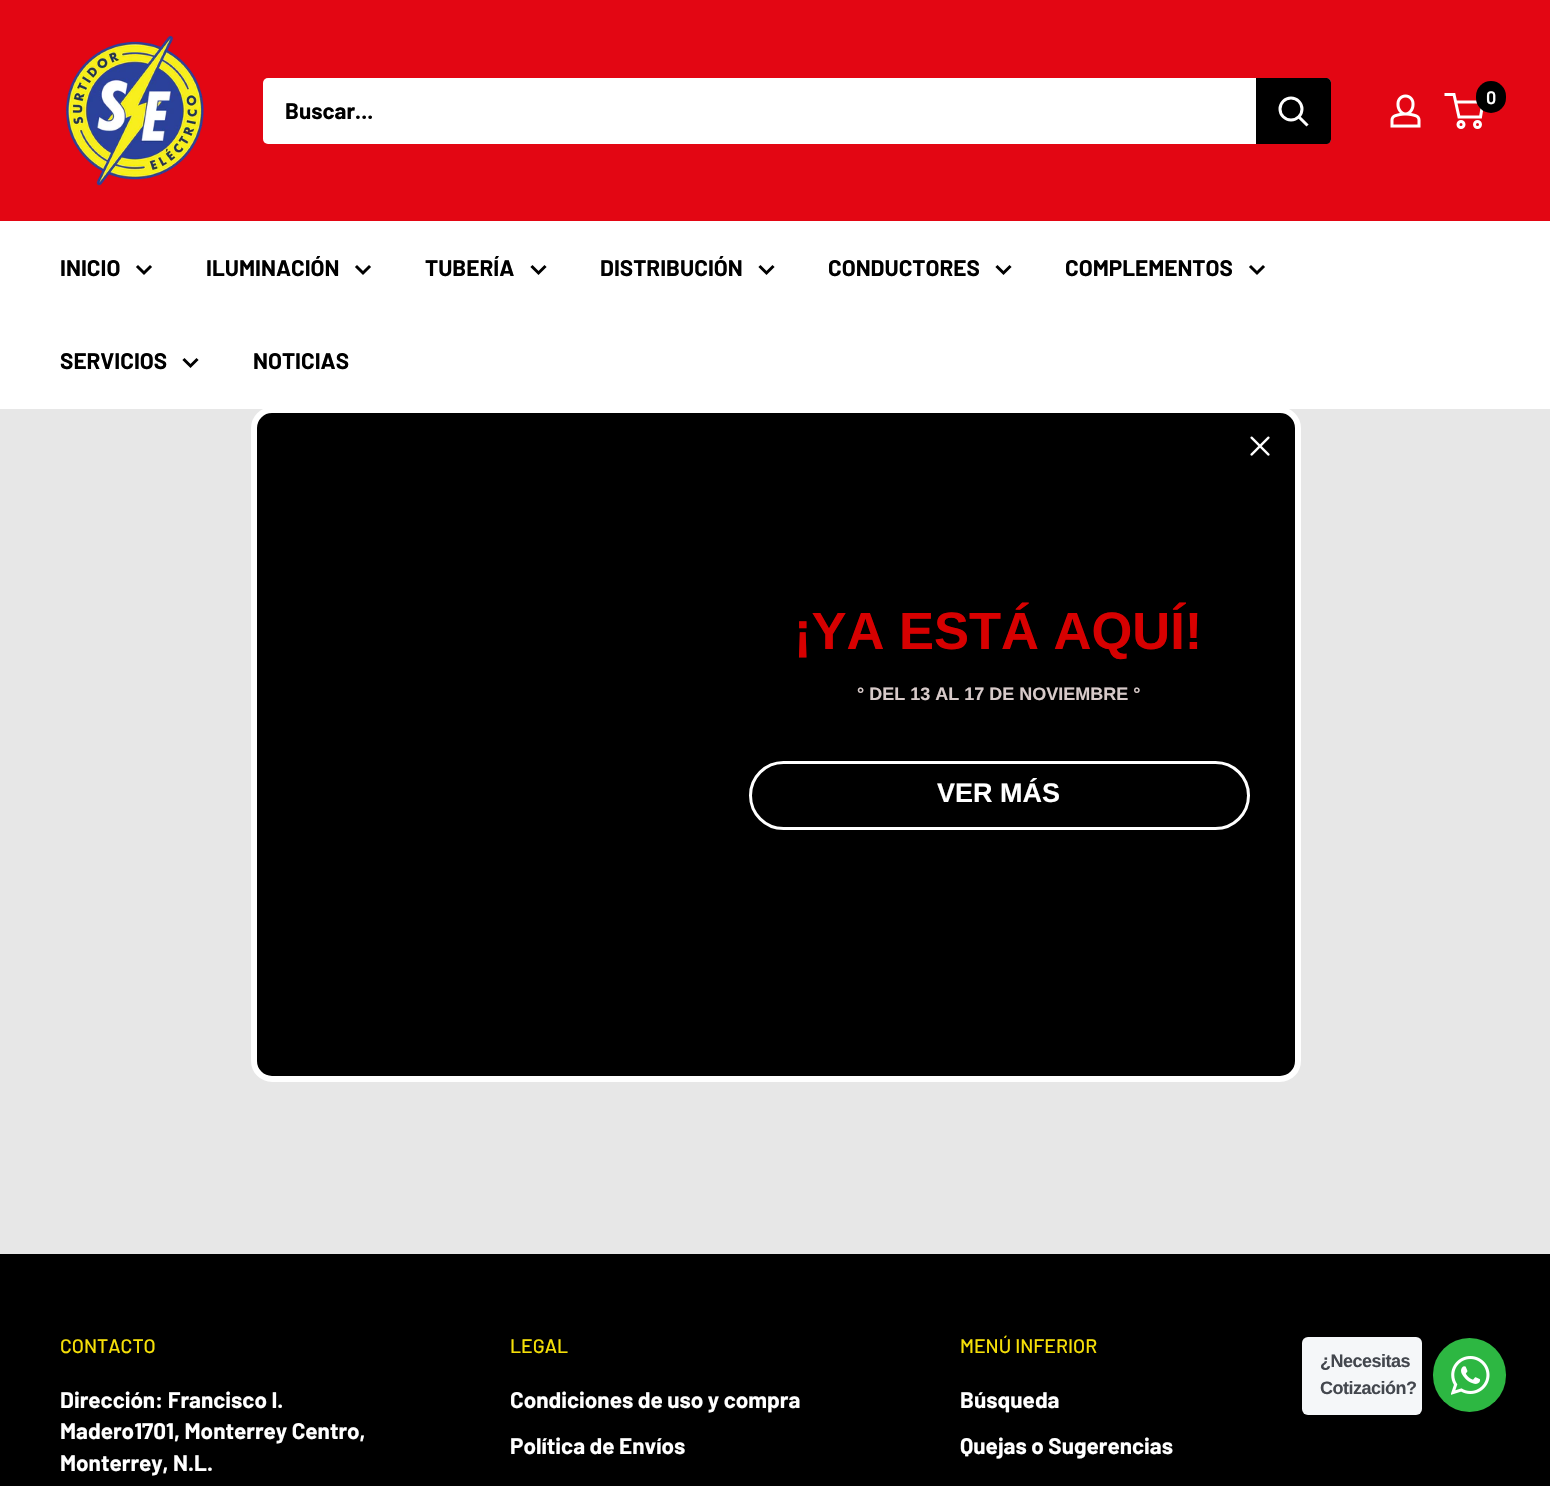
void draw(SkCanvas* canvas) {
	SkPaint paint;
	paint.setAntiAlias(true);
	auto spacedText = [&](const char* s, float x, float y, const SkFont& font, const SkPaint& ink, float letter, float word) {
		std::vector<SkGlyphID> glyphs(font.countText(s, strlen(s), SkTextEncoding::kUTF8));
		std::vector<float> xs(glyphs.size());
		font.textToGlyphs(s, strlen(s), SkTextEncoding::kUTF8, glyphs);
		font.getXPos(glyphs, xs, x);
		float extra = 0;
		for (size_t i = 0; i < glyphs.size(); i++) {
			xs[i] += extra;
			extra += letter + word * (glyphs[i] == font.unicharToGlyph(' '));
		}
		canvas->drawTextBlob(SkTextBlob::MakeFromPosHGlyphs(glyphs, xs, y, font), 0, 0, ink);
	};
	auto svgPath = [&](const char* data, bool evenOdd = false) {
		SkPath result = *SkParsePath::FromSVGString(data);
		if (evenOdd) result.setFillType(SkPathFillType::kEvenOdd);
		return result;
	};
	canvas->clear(0xffe7e7e7);
	paint.setColor(0xffe30613);
	canvas->drawRect(SkRect::MakeXYWH(0, 0, 1550, 221), paint);
	canvas->drawImageRect(SkImages::DeferredFromEncodedData(SkData::MakeFromFileName("img1.png")), SkRect::MakeXYWH(66, 35, 138, 151), SkSamplingOptions());
	canvas->drawImageRect(SkImages::DeferredFromEncodedData(SkData::MakeFromFileName("img2.png")), SkRect::MakeXYWH(1390, 94, 31, 34), SkSamplingOptions());
	paint.setStroke(true);
	paint.setStrokeWidth(3);
	paint.setColor(0xffffffff);
	canvas->drawCircle(1461, 124.5, 3, paint);
	canvas->drawCircle(1477.5, 124.5, 3, paint);
	canvas->drawPath(svgPath("M1455.5 102H1483L1480.5 117H1459L1454 94.5H1444.5"), paint);
	paint.setStroke(false);
	paint.setColor(0xff000000);
	canvas->drawRoundRect(SkRect::MakeXYWH(1476, 81, 30, 32), 15, 15, paint);
	SkFont f1(fontMgr->matchFamilyStyle("Barlow", SkFontStyle(600, SkFontStyle::kNormal_Width, SkFontStyle::kUpright_Slant)), 18);
	f1.setSubpixel(true);
	paint.setColor(0xffffffff);
	canvas->drawString("0", 1486, 104, f1, paint);
	canvas->drawRoundRect(SkRect::MakeXYWH(263, 78, 1068, 66), 5, 5, paint);
	SkFont f2(fontMgr->matchFamilyStyle("Barlow", SkFontStyle::Bold()), 22.5);
	f2.setSubpixel(true);
	paint.setColor(0xff000000);
	canvas->drawString("Buscar...", 285, 119, f2, paint);
	canvas->drawPath(svgPath("M1256 78H1326C1329 78 1331 80 1331 83V139C1331 142 1329 144 1326 144H1256Z"), paint);
	paint.setStroke(true);
	paint.setStrokeCap(SkPaint::kSquare_Cap);
	paint.setColor(0xffffffff);
	canvas->drawPath(svgPath("M1306.5 124.5L1299 117"), paint);
	paint.setStrokeCap(SkPaint::kButt_Cap);
	canvas->drawCircle(1291, 109, 11, paint);
	paint.setStroke(false);
	canvas->drawRect(SkRect::MakeXYWH(0, 221, 1550, 188), paint);
	paint.setColor(0xff000000);
	canvas->drawString("INICIO", 60, 276, f2, paint);
	paint.setStroke(true);
	paint.setStrokeCap(SkPaint::kSquare_Cap);
	canvas->drawPath(svgPath("M150 267L144 273L138 267"), paint);
	paint.setStroke(false);
	canvas->drawString("ILUMINACIÓN", 206, 276, f2, paint);
	paint.setStroke(true);
	canvas->drawPath(svgPath("M369 267L363 273L357 267"), paint);
	paint.setStroke(false);
	canvas->drawString("TUBERÍA", 425, 276, f2, paint);
	paint.setStroke(true);
	canvas->drawPath(svgPath("M544.5 267L538.5 273L532.5 267"), paint);
	paint.setStroke(false);
	canvas->drawString("DISTRIBUCIÓN", 600, 276, f2, paint);
	paint.setStroke(true);
	canvas->drawPath(svgPath("M772.5 267L766.5 273L760.5 267"), paint);
	paint.setStroke(false);
	canvas->drawString("CONDUCTORES", 828, 276, f2, paint);
	paint.setStroke(true);
	canvas->drawPath(svgPath("M1009.5 267L1003.5 273L997.5 267"), paint);
	paint.setStroke(false);
	canvas->drawString("COMPLEMENTOS", 1065, 276, f2, paint);
	paint.setStroke(true);
	canvas->drawPath(svgPath("M1263 267L1257 273L1251 267"), paint);
	paint.setStroke(false);
	canvas->drawString("SERVICIOS", 60, 369, f2, paint);
	paint.setStroke(true);
	canvas->drawPath(svgPath("M196.5 360L190.5 366L184.5 360"), paint);
	paint.setStroke(false);
	canvas->drawString("NOTICIAS", 253, 369, f2, paint);
	canvas->drawRoundRect(SkRect::MakeXYWH(254, 410, 1044, 669), 18, 18, paint);
	paint.setStroke(true);
	paint.setStrokeWidth(6);
	paint.setStrokeCap(SkPaint::kButt_Cap);
	paint.setColor(0xffffffff);
	canvas->drawRoundRect(SkRect::MakeXYWH(254, 410, 1044, 669), 18, 18, paint);
	canvas->drawImageRect(SkImages::DeferredFromEncodedData(SkData::MakeFromFileName("img3.png")), SkRect::MakeXYWH(1250, 436, 20, 20), SkSamplingOptions());
	SkFont f3(fontMgr->matchFamilyStyle("Liberation Sans", SkFontStyle::Bold()), 52.5);
	f3.setSubpixel(true);
	paint.setStroke(false);
	paint.setColor(0xffd70000);
	canvas->drawString("¡YA ESTÁ AQUÍ!", 794, 649, f3, paint);
	SkFont f4(fontMgr->matchFamilyStyle("Liberation Sans", SkFontStyle::Bold()), 18);
	f4.setSubpixel(true);
	paint.setColor(0xffd7cac9);
	canvas->drawString("° DEL 13 AL 17 DE NOVIEMBRE °", 857, 700, f4, paint);
	paint.setStroke(true);
	paint.setStrokeWidth(3);
	paint.setColor(0xffffffff);
	canvas->drawRoundRect(SkRect::MakeXYWH(750.5, 762.5, 498, 66), 33, 33, paint);
	SkFont f5(fontMgr->matchFamilyStyle("Liberation Sans", SkFontStyle::Bold()), 27);
	f5.setSubpixel(true);
	paint.setStroke(false);
	canvas->drawString("VER MÁS", 937, 802, f5, paint);
	paint.setColor(0xff000000);
	canvas->drawRect(SkRect::MakeXYWH(0, 1254, 1550, 232), paint);
	SkFont f6(fontMgr->matchFamilyStyle("Barlow", SkFontStyle(500, SkFontStyle::kNormal_Width, SkFontStyle::kUpright_Slant)), 19.5);
	f6.setSubpixel(true);
	paint.setColor(0xfff5df08);
	canvas->drawString("CONTACTO", 60, 1353, f6, paint);
	paint.setColor(0xffffffff);
	canvas->drawString("Dirección: Francisco I.", 60, 1408, f2, paint);
	canvas->drawString("Madero1701, Monterrey Centro,", 60, 1439, f2, paint);
	canvas->drawString("Monterrey, N.L.", 60, 1471, f2, paint);
	paint.setColor(0xfff5df08);
	canvas->drawString("LEGAL", 510, 1353, f6, paint);
	paint.setColor(0xffffffff);
	canvas->drawString("Condiciones de uso y compra", 510, 1408, f2, paint);
	canvas->drawString("Política de Envíos", 510, 1454, f2, paint);
	paint.setColor(0xfff5df08);
	canvas->drawString("MENÚ INFERIOR", 960, 1353, f6, paint);
	paint.setColor(0xffffffff);
	canvas->drawString("Búsqueda", 960, 1408, f2, paint);
	canvas->drawString("Quejas o Sugerencias", 960, 1454, f2, paint);
	paint.setColor(0xfff5f7f9);
	canvas->drawRoundRect(SkRect::MakeXYWH(1302, 1337, 120, 78), 6, 6, paint);
	paint.setColor(0xff43474e);
	spacedText("¿Necesitas", 1320, 1367, f4, paint, -0.5, 0);
	spacedText("Cotización?", 1320, 1394, f4, paint, -0.5, 0);
	paint.setColor(0xff2db742);
	canvas->drawRoundRect(SkRect::MakeXYWH(1433, 1338, 73, 74), 36.5, 36.5, paint);
	canvas->drawImageRect(SkImages::DeferredFromEncodedData(SkData::MakeFromFileName("img4.png")), SkRect::MakeXYWH(1451, 1356, 39, 39), SkSamplingOptions());
}
